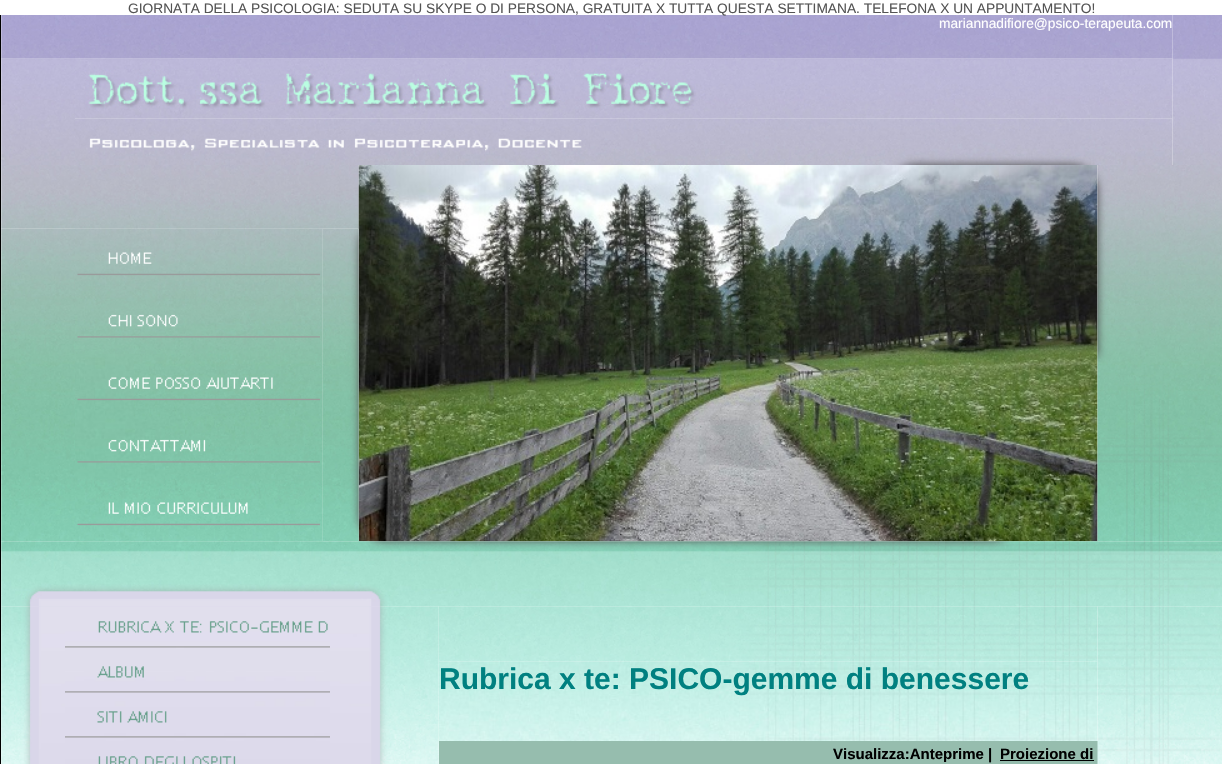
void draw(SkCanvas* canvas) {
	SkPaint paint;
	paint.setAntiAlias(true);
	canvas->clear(0xffffffff);
	canvas->drawImageRect(SkImages::DeferredFromEncodedData(SkData::MakeFromFileName("img2.png")), SkRect::MakeXYWH(600, 15, 573, 44), SkSamplingOptions());
	SkFont f1(fontMgr->matchFamilyStyle("Liberation Sans", SkFontStyle::Normal()), 13.75);
	f1.setSubpixel(true);
	paint.setColor(0xff545454);
	canvas->drawString("GIORNATA DELLA PSICOLOGIA: SEDUTA SU SKYPE O DI PERSONA, GRATUITA X TUTTA QUESTA SETTIMANA. TELEFONA X UN APPUNTAMENTO!", 128, 13, f1, paint);
	paint.setColor(0xff000000);
	canvas->drawRect(SkRect::MakeXYWH(0, 15, 1, 749), paint);
	canvas->drawImageRect(SkImages::DeferredFromEncodedData(SkData::MakeFromFileName("img1.png")), SkRect::MakeXYWH(1, 15, 599, 44), SkSamplingOptions());
	paint.setColor(0xffffffff);
	canvas->drawString("mariannadifiore@psico-terapeuta.com", 939, 28, f1, paint);
	canvas->drawImageRect(SkImages::DeferredFromEncodedData(SkData::MakeFromFileName("img3.png")), SkRect::MakeXYWH(1172, 15, 50, 150), SkSamplingOptions());
	canvas->drawImageRect(SkImages::DeferredFromEncodedData(SkData::MakeFromFileName("img4.png")), SkRect::MakeXYWH(1, 58, 74, 107), SkSamplingOptions());
	canvas->drawImageRect(SkImages::DeferredFromEncodedData(SkData::MakeFromFileName("img5.png")), SkRect::MakeXYWH(75, 59, 1098, 60), SkSamplingOptions());
	canvas->drawImageRect(SkImages::DeferredFromEncodedData(SkData::MakeFromFileName("img6.png")), SkRect::MakeXYWH(75, 118, 1098, 47), SkSamplingOptions());
	canvas->drawImageRect(SkImages::DeferredFromEncodedData(SkData::MakeFromFileName("img11.png")), SkRect::MakeXYWH(75, 228, 248, 314), SkSamplingOptions());
	canvas->drawImageRect(SkImages::DeferredFromEncodedData(SkData::MakeFromFileName("img12.png")), SkRect::MakeXYWH(75, 228, 248, 64), SkSamplingOptions());
	canvas->drawImageRect(SkImages::DeferredFromEncodedData(SkData::MakeFromFileName("img7.png")), SkRect::MakeXYWH(1, 165, 358, 64), SkSamplingOptions());
	canvas->drawImageRect(SkImages::DeferredFromEncodedData(SkData::MakeFromFileName("img8.png")), SkRect::MakeXYWH(358, 165, 740, 377), SkSamplingOptions());
	canvas->drawImageRect(SkImages::DeferredFromEncodedData(SkData::MakeFromFileName("img9.png")), SkRect::MakeXYWH(1097, 165, 125, 377), SkSamplingOptions());
	canvas->drawImageRect(SkImages::DeferredFromEncodedData(SkData::MakeFromFileName("img10.png")), SkRect::MakeXYWH(1, 228, 74, 314), SkSamplingOptions());
	canvas->drawImageRect(SkImages::DeferredFromEncodedData(SkData::MakeFromFileName("img13.png")), SkRect::MakeXYWH(77, 252, 244, 24), SkSamplingOptions());
	canvas->drawImageRect(SkImages::DeferredFromEncodedData(SkData::MakeFromFileName("img14.png")), SkRect::MakeXYWH(75, 291, 248, 63), SkSamplingOptions());
	canvas->drawImageRect(SkImages::DeferredFromEncodedData(SkData::MakeFromFileName("img15.png")), SkRect::MakeXYWH(77, 314, 243, 24), SkSamplingOptions());
	canvas->drawImageRect(SkImages::DeferredFromEncodedData(SkData::MakeFromFileName("img16.png")), SkRect::MakeXYWH(134, 353, 189, 64), SkSamplingOptions());
	canvas->drawImageRect(SkImages::DeferredFromEncodedData(SkData::MakeFromFileName("img17.png")), SkRect::MakeXYWH(77, 377, 244, 24), SkSamplingOptions());
	canvas->drawImageRect(SkImages::DeferredFromEncodedData(SkData::MakeFromFileName("img18.png")), SkRect::MakeXYWH(165, 416, 158, 63), SkSamplingOptions());
	canvas->drawImageRect(SkImages::DeferredFromEncodedData(SkData::MakeFromFileName("img19.png")), SkRect::MakeXYWH(77, 439, 243, 24), SkSamplingOptions());
	canvas->drawImageRect(SkImages::DeferredFromEncodedData(SkData::MakeFromFileName("img20.png")), SkRect::MakeXYWH(75, 478, 248, 64), SkSamplingOptions());
	canvas->drawImageRect(SkImages::DeferredFromEncodedData(SkData::MakeFromFileName("img21.png")), SkRect::MakeXYWH(77, 502, 244, 24), SkSamplingOptions());
	canvas->drawImageRect(SkImages::DeferredFromEncodedData(SkData::MakeFromFileName("img22.png")), SkRect::MakeXYWH(322, 228, 37, 314), SkSamplingOptions());
	canvas->drawImageRect(SkImages::DeferredFromEncodedData(SkData::MakeFromFileName("img24.png")), SkRect::MakeXYWH(1, 606, 430, 158), SkSamplingOptions());
	canvas->drawImageRect(SkImages::DeferredFromEncodedData(SkData::MakeFromFileName("img26.png")), SkRect::MakeXYWH(65, 606, 265, 158), SkSamplingOptions());
	canvas->drawImageRect(SkImages::DeferredFromEncodedData(SkData::MakeFromFileName("img32.png")), SkRect::MakeXYWH(441, 606, 781, 135), SkSamplingOptions());
	canvas->drawImageRect(SkImages::DeferredFromEncodedData(SkData::MakeFromFileName("img33.png")), SkRect::MakeXYWH(438, 606, 660, 56), SkSamplingOptions());
	canvas->drawImageRect(SkImages::DeferredFromEncodedData(SkData::MakeFromFileName("img23.png")), SkRect::MakeXYWH(1, 541, 1221, 66), SkSamplingOptions());
	canvas->drawImageRect(SkImages::DeferredFromEncodedData(SkData::MakeFromFileName("img25.png")), SkRect::MakeXYWH(1, 606, 64, 158), SkSamplingOptions());
	canvas->drawImageRect(SkImages::DeferredFromEncodedData(SkData::MakeFromFileName("img27.png")), SkRect::MakeXYWH(65, 621, 265, 27), SkSamplingOptions());
	canvas->drawImageRect(SkImages::DeferredFromEncodedData(SkData::MakeFromFileName("img28.png")), SkRect::MakeXYWH(65, 666, 265, 27), SkSamplingOptions());
	canvas->drawImageRect(SkImages::DeferredFromEncodedData(SkData::MakeFromFileName("img29.png")), SkRect::MakeXYWH(65, 711, 265, 27), SkSamplingOptions());
	canvas->drawImageRect(SkImages::DeferredFromEncodedData(SkData::MakeFromFileName("img30.png")), SkRect::MakeXYWH(98, 756, 138, 8), SkSamplingOptions());
	canvas->drawImageRect(SkImages::DeferredFromEncodedData(SkData::MakeFromFileName("img35.png")), SkRect::MakeXYWH(438, 661, 660, 103), SkSamplingOptions());
	canvas->drawImageRect(SkImages::DeferredFromEncodedData(SkData::MakeFromFileName("img31.png")), SkRect::MakeXYWH(330, 606, 109, 158), SkSamplingOptions());
	paint.setColor(0xff96bdae);
	canvas->drawRect(SkRect::MakeXYWH(439, 741, 659, 23), paint);
	canvas->drawImageRect(SkImages::DeferredFromEncodedData(SkData::MakeFromFileName("img34.png")), SkRect::MakeXYWH(1097, 606, 125, 158), SkSamplingOptions());
	SkFont f2(fontMgr->matchFamilyStyle("Liberation Sans", SkFontStyle::Bold()), 30);
	f2.setSubpixel(true);
	paint.setColor(0xff008080);
	canvas->drawString("Rubrica x te: PSICO-gemme di benessere", 439, 689, f2, paint);
	SkFont f3(fontMgr->matchFamilyStyle("Liberation Sans", SkFontStyle::Bold()), 15);
	f3.setSubpixel(true);
	paint.setColor(0xff000000);
	canvas->drawString("Visualizza:Anteprime |", 833, 759, f3, paint);
	canvas->drawString("Proiezione di", 1000, 759, f3, paint);
	canvas->drawRect(SkRect::MakeXYWH(1000, 760, 94, 1), paint);
}
